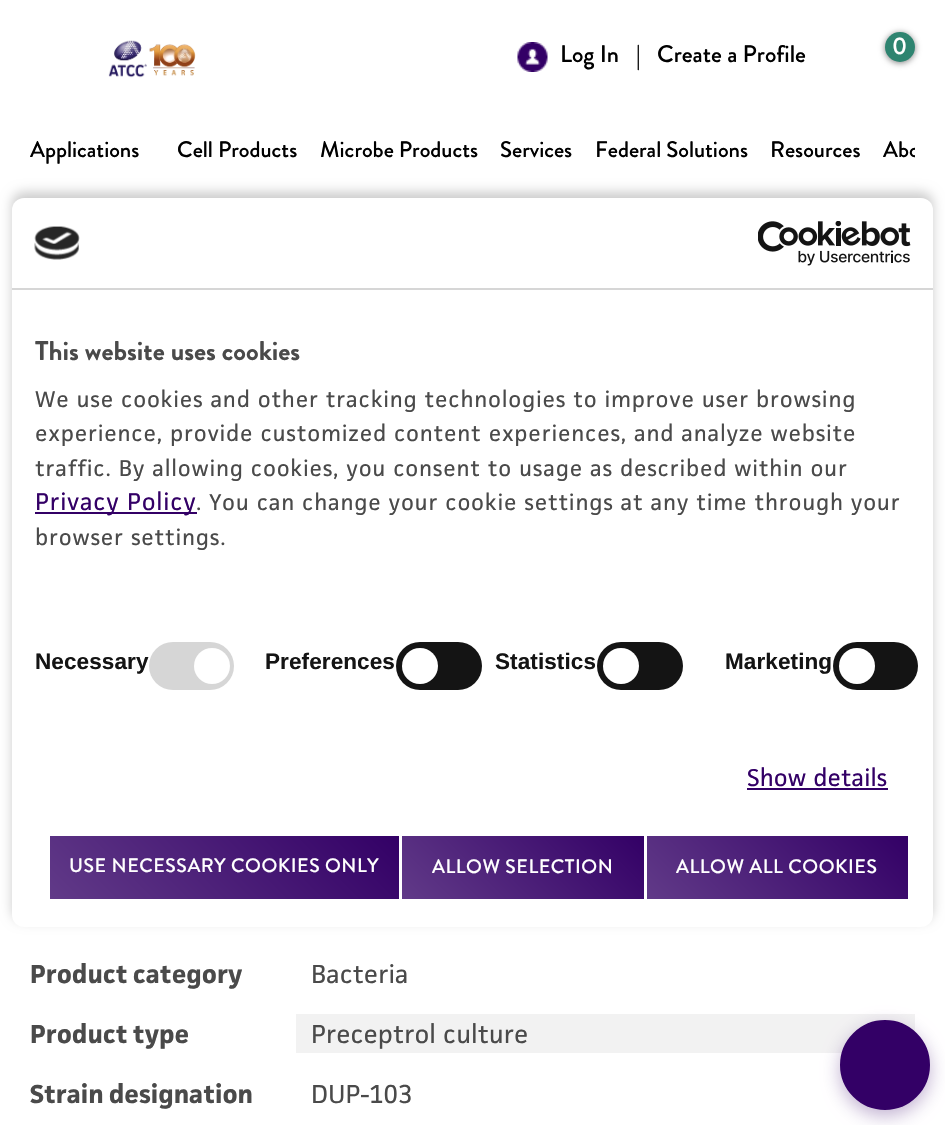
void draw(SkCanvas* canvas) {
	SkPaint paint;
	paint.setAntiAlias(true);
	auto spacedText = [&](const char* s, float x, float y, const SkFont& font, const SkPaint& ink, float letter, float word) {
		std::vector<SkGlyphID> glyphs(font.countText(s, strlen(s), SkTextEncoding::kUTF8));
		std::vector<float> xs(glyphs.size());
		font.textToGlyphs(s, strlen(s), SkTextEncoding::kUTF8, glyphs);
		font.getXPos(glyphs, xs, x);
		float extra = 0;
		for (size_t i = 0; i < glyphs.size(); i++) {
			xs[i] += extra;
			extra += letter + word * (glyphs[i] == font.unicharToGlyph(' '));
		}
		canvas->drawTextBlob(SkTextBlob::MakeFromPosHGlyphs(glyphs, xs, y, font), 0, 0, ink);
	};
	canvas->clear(0xffffffff);
	canvas->drawImageRect(SkImages::DeferredFromEncodedData(SkData::MakeFromFileName("img1.png")), SkRect::MakeXYWH(108, 40, 88, 38), SkSamplingOptions());
	canvas->drawImageRect(SkImages::DeferredFromEncodedData(SkData::MakeFromFileName("img2.png")), SkRect::MakeXYWH(517, 42, 31, 30), SkSamplingOptions());
	SkFont f1(fontMgr->matchFamilyStyle("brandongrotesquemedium", SkFontStyle(500, SkFontStyle::kNormal_Width, SkFontStyle::kUpright_Slant)), 24);
	f1.setSubpixel(true);
	paint.setColor(0xff000000);
	canvas->drawString("Log In", 560, 62, f1, paint);
	canvas->drawString("|", 636, 63, f1, paint);
	canvas->drawString("Create a Profile", 657, 62, f1, paint);
	paint.setColor(0x80000000);
	paint.setMaskFilter(SkMaskFilter::MakeBlur(kNormal_SkBlurStyle, 3));
	canvas->drawRoundRect(SkRect::MakeXYWH(885, 33, 30, 30), 15, 15, paint);
	paint.setMaskFilter(nullptr);
	paint.setColor(0xff2e8470);
	canvas->drawCircle(900, 47, 15, paint);
	paint.setColor(0xffffffff);
	canvas->drawString("0", 892, 54, f1, paint);
	SkFont f2(fontMgr->matchFamilyStyle("brandongrotesquemedium", SkFontStyle(500, SkFontStyle::kNormal_Width, SkFontStyle::kUpright_Slant)), 22.5);
	f2.setSubpixel(true);
	paint.setColor(0xff000000);
	canvas->drawString("Applications", 30, 157, f2, paint);
	canvas->drawString("Cell Products", 177, 157, f2, paint);
	canvas->drawString("Microbe Products", 320, 157, f2, paint);
	canvas->drawString("Services", 500, 157, f2, paint);
	canvas->drawString("Federal Solutions", 595, 157, f2, paint);
	canvas->drawString("Resources", 770, 157, f2, paint);
	canvas->save();
	canvas->clipRect(SkRect::MakeXYWH(30, 129, 885, 62));
	canvas->drawString("Abo", 883, 157, f2, paint);
	canvas->restore();
	paint.setColor(0x33000000);
	paint.setMaskFilter(SkMaskFilter::MakeBlur(kNormal_SkBlurStyle, 6));
	canvas->drawRoundRect(SkRect::MakeXYWH(12, 192, 921, 729), 12, 12, paint);
	paint.setMaskFilter(nullptr);
	paint.setColor(0xffffffff);
	canvas->drawRoundRect(SkRect::MakeXYWH(12, 198, 921, 729), 12, 12, paint);
	paint.setColor(0xffd6d6d6);
	canvas->drawRect(SkRect::MakeXYWH(12, 288, 921, 2), paint);
	canvas->drawImageRect(SkImages::DeferredFromEncodedData(SkData::MakeFromFileName("img3.png")), SkRect::MakeXYWH(34, 226, 46, 34), SkSamplingOptions());
	canvas->drawImageRect(SkImages::DeferredFromEncodedData(SkData::MakeFromFileName("img4.png")), SkRect::MakeXYWH(758, 221, 153, 45), SkSamplingOptions());
	SkFont f3(fontMgr->matchFamilyStyle("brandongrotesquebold", SkFontStyle::Bold()), 27);
	f3.setSubpixel(true);
	paint.setColor(0xff4a4a4a);
	canvas->drawString("This website uses cookies", 35, 360, f3, paint);
	SkFont f4(fontMgr->matchFamilyStyle("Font", SkFontStyle::Normal()), 21);
	f4.setSubpixel(true);
	spacedText("We use cookies and other tracking technologies to improve user browsing", 35, 407, f4, paint, 0.75, 0);
	spacedText("experience, provide customized content experiences, and analyze website", 35, 441, f4, paint, 0.75, 0);
	spacedText("traffic. By allowing cookies, you consent to usage as described within our", 35, 476, f4, paint, 0.75, 0);
	paint.setColor(0xff330066);
	canvas->drawRect(SkRect::MakeXYWH(35, 512, 162, 2), paint);
	SkFont f5(fontMgr->matchFamilyStyle("Font", SkFontStyle::Normal()), 22.5);
	f5.setSubpixel(true);
	spacedText("Privacy Policy", 35, 510, f5, paint, 0.75, 0);
	paint.setColor(0xff4a4a4a);
	spacedText(". You can change your cookie settings at any time through your", 196, 510, f4, paint, 0.75, 0);
	spacedText("browser settings.", 35, 545, f4, paint, 0.75, 0);
	SkFont f6(fontMgr->matchFamilyStyle("Liberation Sans", SkFontStyle::Bold()), 22.5);
	f6.setSubpixel(true);
	paint.setColor(0xff141414);
	spacedText("Necessary", 35, 669, f6, paint, 0.1, 0);
	paint.setColor(0xffd6d6d6);
	canvas->drawRoundRect(SkRect::MakeXYWH(149, 642, 85, 48), 24, 24, paint);
	paint.setColor(0xffffffff);
	canvas->drawCircle(212, 666, 18, paint);
	paint.setColor(0xff141414);
	spacedText("Preferences", 265, 669, f6, paint, 0.1, 0);
	canvas->drawRoundRect(SkRect::MakeXYWH(396, 642, 86, 48), 24, 24, paint);
	paint.setColor(0xffffffff);
	canvas->drawCircle(420, 666, 18, paint);
	paint.setColor(0xff141414);
	spacedText("Statistics", 495, 669, f6, paint, 0.1, 0);
	canvas->drawRoundRect(SkRect::MakeXYWH(597, 642, 86, 48), 24, 24, paint);
	paint.setColor(0xffffffff);
	canvas->drawCircle(621, 666, 18, paint);
	paint.setColor(0xff141414);
	spacedText("Marketing", 725, 669, f6, paint, 0.1, 0);
	canvas->drawRoundRect(SkRect::MakeXYWH(833, 642, 85, 48), 24, 24, paint);
	paint.setColor(0xffffffff);
	canvas->drawCircle(857, 666, 18, paint);
	paint.setColor(0xff330066);
	spacedText("Show details", 747, 786, f5, paint, 0.1, 0);
	canvas->drawRect(SkRect::MakeXYWH(747, 788, 141, 2), paint);
	{
		const SkColor colors[] = {0xff613a88, 0xff330066};
		const float stops[] = {0, 1};
		const SkPoint ends[] = {{121, 970}, {327, 764}};
		paint.setShader(SkGradientShader::MakeLinear(ends, colors, stops, 2, SkTileMode::kClamp));
		paint.setAlpha(255);
	}
	canvas->drawRect(SkRect::MakeXYWH(50, 836, 349, 63), paint);
	SkFont f7(fontMgr->matchFamilyStyle("brandongrotesquemedium", SkFontStyle(500, SkFontStyle::kNormal_Width, SkFontStyle::kUpright_Slant)), 19.5);
	f7.setSubpixel(true);
	paint.setShader(nullptr);
	paint.setColor(0xffffffff);
	spacedText("USE NECESSARY COOKIES ONLY", 69, 872, f7, paint, 0.55, 0);
	{
		const SkColor colors[] = {0xff613a88, 0xff330066};
		const float stops[] = {0, 1};
		const SkPoint ends[] = {{447, 943}, {599, 791}};
		paint.setShader(SkGradientShader::MakeLinear(ends, colors, stops, 2, SkTileMode::kClamp));
		paint.setAlpha(255);
	}
	canvas->drawRect(SkRect::MakeXYWH(402, 836, 242, 63), paint);
	paint.setShader(nullptr);
	paint.setColor(0xffffffff);
	spacedText("ALLOW SELECTION", 432, 873, f7, paint, 0.55, 0);
	{
		const SkColor colors[] = {0xff613a88, 0xff330066};
		const float stops[] = {0, 1};
		const SkPoint ends[] = {{696, 948}, {858, 786}};
		paint.setShader(SkGradientShader::MakeLinear(ends, colors, stops, 2, SkTileMode::kClamp));
		paint.setAlpha(255);
	}
	canvas->drawRect(SkRect::MakeXYWH(647, 836, 261, 63), paint);
	paint.setShader(nullptr);
	paint.setColor(0xffffffff);
	spacedText("ALLOW ALL COOKIES", 676, 873, f7, paint, 0.55, 0);
	SkFont f8(fontMgr->matchFamilyStyle("Font", SkFontStyle::Bold()), 24);
	f8.setSubpixel(true);
	paint.setColor(0xff4a4a4a);
	canvas->drawString("Product category", 30, 983, f8, paint);
	SkFont f9(fontMgr->matchFamilyStyle("Font", SkFontStyle::Normal()), 24);
	f9.setSubpixel(true);
	canvas->drawString("Bacteria", 311, 983, f9, paint);
	canvas->drawString("Product type", 30, 1043, f8, paint);
	paint.setColor(0xfff2f2f2);
	canvas->drawRect(SkRect::MakeXYWH(296, 1014, 619, 39), paint);
	paint.setColor(0xff4a4a4a);
	canvas->drawString("Preceptrol culture", 311, 1043, f9, paint);
	canvas->drawString("Strain designation", 30, 1103, f8, paint);
	canvas->drawString("DUP-103", 311, 1103, f9, paint);
	paint.setColor(0x4d330066);
	paint.setMaskFilter(SkMaskFilter::MakeBlur(kNormal_SkBlurStyle, 9));
	canvas->drawRoundRect(SkRect::MakeXYWH(840, 1026, 90, 90), 45, 45, paint);
	paint.setMaskFilter(nullptr);
	paint.setColor(0xff330066);
	canvas->drawCircle(885, 1065, 44, paint);
	paint.setStroke(true);
	paint.setStrokeWidth(2);
	canvas->drawCircle(885, 1065, 44, paint);
}
